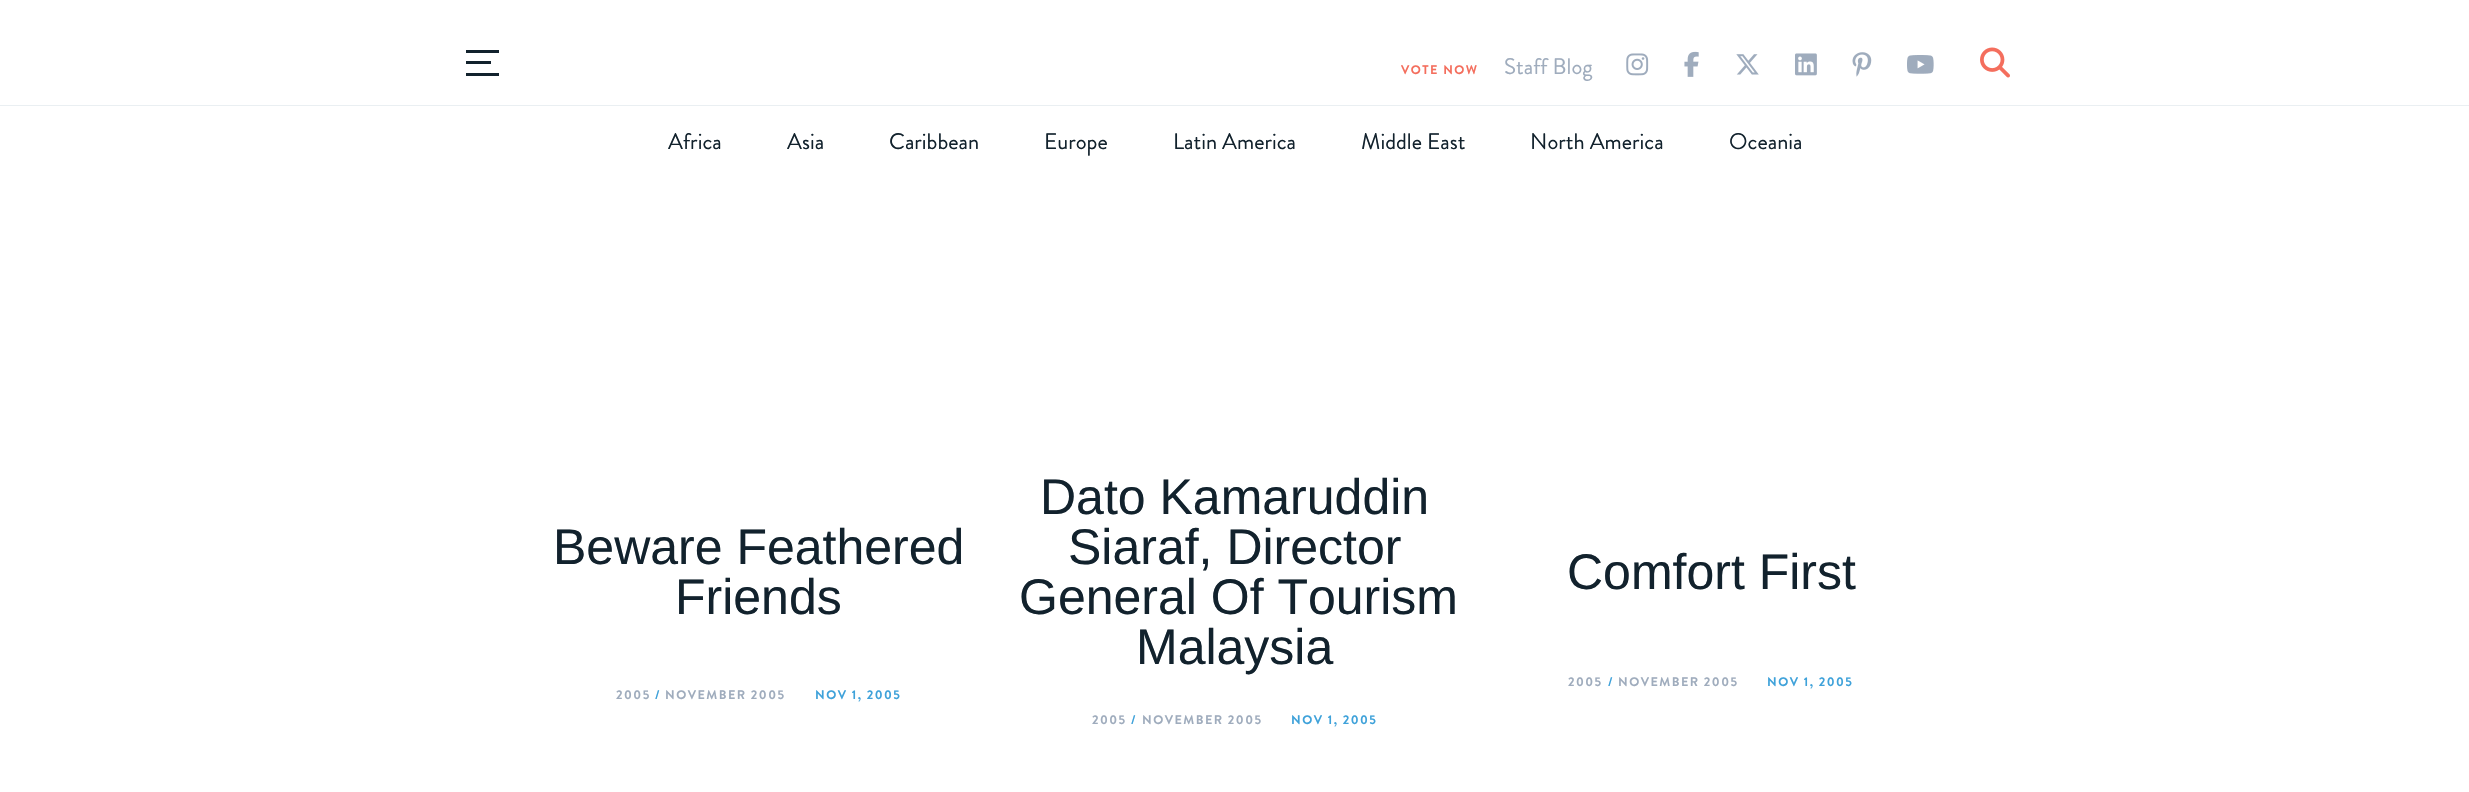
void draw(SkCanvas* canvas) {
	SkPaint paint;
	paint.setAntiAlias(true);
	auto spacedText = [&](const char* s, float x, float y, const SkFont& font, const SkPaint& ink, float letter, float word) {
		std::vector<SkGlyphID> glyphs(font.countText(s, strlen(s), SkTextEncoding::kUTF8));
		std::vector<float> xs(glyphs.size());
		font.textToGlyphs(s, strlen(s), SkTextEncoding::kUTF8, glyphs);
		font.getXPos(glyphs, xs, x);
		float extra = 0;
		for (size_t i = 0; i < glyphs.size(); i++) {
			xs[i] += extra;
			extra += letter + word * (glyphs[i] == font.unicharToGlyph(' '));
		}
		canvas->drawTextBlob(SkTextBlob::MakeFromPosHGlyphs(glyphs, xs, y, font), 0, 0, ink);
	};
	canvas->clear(0xffffffff);
	paint.setColor(0xff12222d);
	canvas->drawRect(SkRect::MakeXYWH(466, 50, 33, 3), paint);
	canvas->drawRect(SkRect::MakeXYWH(466, 61, 25, 3), paint);
	canvas->drawRect(SkRect::MakeXYWH(466, 73, 33, 3), paint);
	SkFont f1(fontMgr->matchFamilyStyle("Brandon Grotesque", SkFontStyle::Bold()), 12.5);
	f1.setSubpixel(true);
	paint.setColor(0xfff46e5d);
	spacedText("VOTE NOW", 1401, 74, f1, paint, 1.5, 0);
	SkFont f2(fontMgr->matchFamilyStyle("Brandon Grotesque", SkFontStyle::Normal()), 22.5);
	f2.setSubpixel(true);
	paint.setColor(0xff9facbd);
	canvas->drawString("Staff Blog", 1504, 74, f2, paint);
	canvas->drawImageRect(SkImages::DeferredFromEncodedData(SkData::MakeFromFileName("img1.png")), SkRect::MakeXYWH(1626, 53, 23, 23), SkSamplingOptions());
	canvas->drawImageRect(SkImages::DeferredFromEncodedData(SkData::MakeFromFileName("img2.png")), SkRect::MakeXYWH(1684, 51, 15, 26), SkSamplingOptions());
	canvas->drawImageRect(SkImages::DeferredFromEncodedData(SkData::MakeFromFileName("img3.png")), SkRect::MakeXYWH(1736, 54, 23, 21), SkSamplingOptions());
	canvas->drawImageRect(SkImages::DeferredFromEncodedData(SkData::MakeFromFileName("img4.png")), SkRect::MakeXYWH(1795, 53, 22, 23), SkSamplingOptions());
	canvas->drawImageRect(SkImages::DeferredFromEncodedData(SkData::MakeFromFileName("img5.png")), SkRect::MakeXYWH(1852, 52, 20, 25), SkSamplingOptions());
	canvas->drawImageRect(SkImages::DeferredFromEncodedData(SkData::MakeFromFileName("img6.png")), SkRect::MakeXYWH(1907, 55, 27, 19), SkSamplingOptions());
	canvas->drawImageRect(SkImages::DeferredFromEncodedData(SkData::MakeFromFileName("img7.png")), SkRect::MakeXYWH(1980, 47, 30, 31), SkSamplingOptions());
	paint.setColor(0xffeaeff2);
	canvas->drawRect(SkRect::MakeXYWH(0, 105, 2469, 1), paint);
	paint.setColor(0xff12222d);
	canvas->drawString("Africa", 668, 149, f2, paint);
	canvas->drawString("Asia", 787, 149, f2, paint);
	canvas->drawString("Caribbean", 889, 149, f2, paint);
	canvas->drawString("Europe", 1044, 149, f2, paint);
	canvas->drawString("Latin America", 1173, 149, f2, paint);
	canvas->drawString("Middle East", 1361, 149, f2, paint);
	canvas->drawString("North America", 1530, 149, f2, paint);
	canvas->drawString("Oceania", 1729, 149, f2, paint);
	SkFont f3(fontMgr->matchFamilyStyle("Liberation Sans", SkFontStyle::Normal()), 50);
	f3.setSubpixel(true);
	canvas->drawString("Beware Feathered", 553, 564, f3, paint);
	canvas->drawString("Friends", 675, 614, f3, paint);
	paint.setColor(0xff9facbd);
	spacedText("2005", 616, 699, f1, paint, 1.5, 0);
	paint.setColor(0xff3fa2da);
	spacedText("/", 655, 699, f1, paint, 1.5, 0);
	paint.setColor(0xff9facbd);
	spacedText("NOVEMBER 2005", 665, 699, f1, paint, 1.5, 0);
	paint.setColor(0xff3fa2da);
	spacedText("NOV 1, 2005", 815, 699, f1, paint, 1.5, 0);
	paint.setColor(0xff12222d);
	canvas->drawString("Dato Kamaruddin", 1040, 514, f3, paint);
	canvas->drawString("Siaraf, Director", 1068, 564, f3, paint);
	canvas->drawString("General Of Tourism", 1019, 614, f3, paint);
	canvas->drawString("Malaysia", 1136, 664, f3, paint);
	paint.setColor(0xff9facbd);
	spacedText("2005", 1092, 724, f1, paint, 1.5, 0);
	paint.setColor(0xff3fa2da);
	spacedText("/", 1131, 724, f1, paint, 1.5, 0);
	paint.setColor(0xff9facbd);
	spacedText("NOVEMBER 2005", 1142, 724, f1, paint, 1.5, 0);
	paint.setColor(0xff3fa2da);
	spacedText("NOV 1, 2005", 1291, 724, f1, paint, 1.5, 0);
	paint.setColor(0xff12222d);
	canvas->drawString("Comfort First", 1567, 589, f3, paint);
	paint.setColor(0xff9facbd);
	spacedText("2005", 1568, 686, f1, paint, 1.5, 0);
	paint.setColor(0xff3fa2da);
	spacedText("/", 1608, 686, f1, paint, 1.5, 0);
	paint.setColor(0xff9facbd);
	spacedText("NOVEMBER 2005", 1618, 686, f1, paint, 1.5, 0);
	paint.setColor(0xff3fa2da);
	spacedText("NOV 1, 2005", 1767, 686, f1, paint, 1.5, 0);
}
